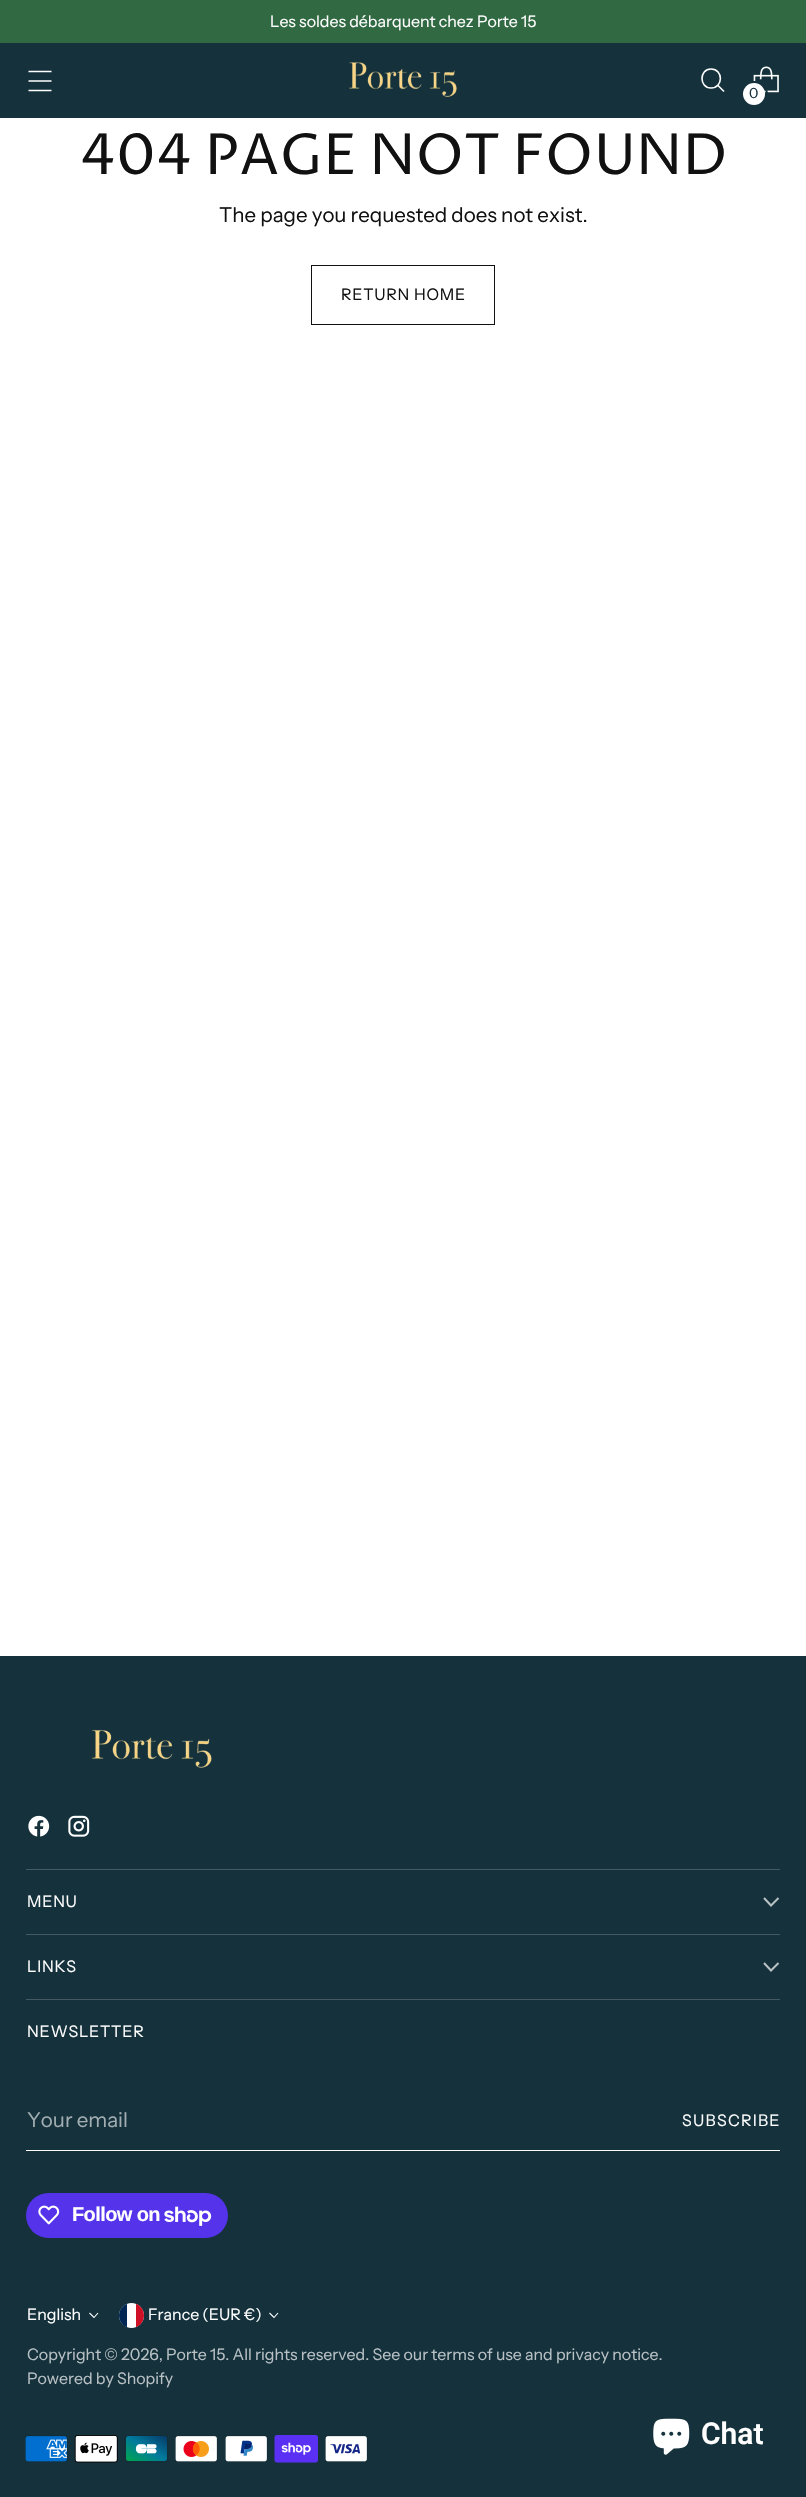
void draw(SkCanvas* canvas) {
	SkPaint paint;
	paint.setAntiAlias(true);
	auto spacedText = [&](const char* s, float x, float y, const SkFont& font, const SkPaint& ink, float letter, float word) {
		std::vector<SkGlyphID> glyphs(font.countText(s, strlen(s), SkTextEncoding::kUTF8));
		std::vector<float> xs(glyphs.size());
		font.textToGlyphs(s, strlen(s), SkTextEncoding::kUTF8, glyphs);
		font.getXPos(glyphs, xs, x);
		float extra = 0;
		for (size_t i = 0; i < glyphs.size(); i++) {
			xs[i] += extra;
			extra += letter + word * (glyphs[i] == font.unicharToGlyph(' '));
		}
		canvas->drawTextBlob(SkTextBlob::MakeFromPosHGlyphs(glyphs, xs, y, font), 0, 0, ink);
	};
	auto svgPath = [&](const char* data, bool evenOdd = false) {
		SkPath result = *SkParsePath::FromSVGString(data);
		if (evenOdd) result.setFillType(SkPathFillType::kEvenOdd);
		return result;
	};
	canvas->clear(0xffffffff);
	paint.setColor(0xff316943);
	canvas->drawRect(SkRect::MakeXYWH(0, 0, 806, 43), paint);
	SkFont f1(fontMgr->matchFamilyStyle("Instrument Sans", SkFontStyle::Normal()), 15.95);
	f1.setSubpixel(true);
	paint.setColor(0xffffffff);
	canvas->drawString("Les soldes débarquent chez Porte 15", 270, 27, f1, paint);
	paint.setColor(0xff14313c);
	canvas->drawRect(SkRect::MakeXYWH(0, 43, 806, 75), paint);
	paint.setStroke(true);
	paint.setStrokeWidth(1.6);
	paint.setColor(0xffffffff);
	canvas->drawPath(svgPath("M28.5 81H51.5M28.5 71.5H51.5M28.5 90.5H51.5"), paint);
	canvas->drawImageRect(SkImages::DeferredFromEncodedData(SkData::MakeFromFileName("img1.png")), SkRect::MakeXYWH(349, 62, 108, 35), SkSamplingOptions());
	paint.setStrokeCap(SkPaint::kRound_Cap);
	canvas->drawPath(svgPath("M711 88C723.5 88 723.5 69 711 69C699 69 699 88 711 88Z"), paint);
	paint.setStrokeCap(SkPaint::kButt_Cap);
	canvas->drawPath(svgPath("M718 85.5L724 91.5"), paint);
	canvas->drawImageRect(SkImages::DeferredFromEncodedData(SkData::MakeFromFileName("img2.png")), SkRect::MakeXYWH(753, 66, 26, 27), SkSamplingOptions());
	paint.setStrokeWidth(2);
	paint.setColor(0xff14313c);
	canvas->drawCircle(754.5, 94.5, 12.5, paint);
	paint.setStroke(false);
	paint.setColor(0xffffffff);
	canvas->drawCircle(754, 94, 11, paint);
	SkFont f2(fontMgr->matchFamilyStyle("Instrument Sans", SkFontStyle::Normal()), 14);
	f2.setSubpixel(true);
	paint.setColor(0xff14313c);
	canvas->drawString("0", 749, 98, f2, paint);
	SkFont f3(fontMgr->matchFamilyStyle("Proza Libre", SkFontStyle::Normal()), 56.5);
	f3.setSubpixel(true);
	paint.setColor(0xff111111);
	canvas->drawString("404 PAGE NOT FOUND", 80, 174, f3, paint);
	SkFont f4(fontMgr->matchFamilyStyle("Instrument Sans", SkFontStyle::Normal()), 20.5);
	f4.setSubpixel(true);
	canvas->drawString("The page you requested does not exist.", 219, 222, f4, paint);
	paint.setStroke(true);
	paint.setStrokeWidth(1);
	canvas->drawRect(SkRect::MakeXYWH(311.5, 265.5, 183, 59), paint);
	paint.setStroke(false);
	spacedText("RETURN HOME", 341, 300, f1, paint, 0.75, 0);
	paint.setColor(0xff14313c);
	canvas->drawRect(SkRect::MakeXYWH(0, 1656, 806, 841), paint);
	paint.setColor(0xff435a63);
	canvas->drawRect(SkRect::MakeXYWH(26, 1869, 754, 1), paint);
	canvas->drawImageRect(SkImages::DeferredFromEncodedData(SkData::MakeFromFileName("img3.png")), SkRect::MakeXYWH(92, 1729, 120, 39), SkSamplingOptions());
	canvas->drawImageRect(SkImages::DeferredFromEncodedData(SkData::MakeFromFileName("img4.png")), SkRect::MakeXYWH(28, 1815, 22, 22), SkSamplingOptions());
	canvas->drawImageRect(SkImages::DeferredFromEncodedData(SkData::MakeFromFileName("img5.png")), SkRect::MakeXYWH(68, 1815, 22, 22), SkSamplingOptions());
	canvas->drawRect(SkRect::MakeXYWH(26, 1934, 754, 1), paint);
	paint.setColor(0xffffffff);
	spacedText("MENU", 27, 1907, f1, paint, 0.75, 0);
	paint.setStroke(true);
	paint.setStrokeWidth(2);
	paint.setColor(0xffb9c1c5);
	canvas->drawPath(svgPath("M764 1898L771 1905.5L778.5 1898"), paint);
	paint.setStroke(false);
	paint.setColor(0xff435a63);
	canvas->drawRect(SkRect::MakeXYWH(26, 1999, 754, 1), paint);
	paint.setColor(0xffffffff);
	spacedText("LINKS", 27, 1972, f1, paint, 0.75, 0);
	paint.setStroke(true);
	paint.setColor(0xffb9c1c5);
	canvas->drawPath(svgPath("M764 1963L771 1970.5L778.5 1963"), paint);
	paint.setStroke(false);
	paint.setColor(0xffffffff);
	spacedText("NEWSLETTER", 27, 2037, f1, paint, 0.75, 0);
	canvas->drawRect(SkRect::MakeXYWH(26, 2150, 754, 1), paint);
	paint.setColor(0xffa1adb1);
	canvas->drawString("Your email", 27, 2127, f4, paint);
	paint.setColor(0xffffffff);
	spacedText("SUBSCRIBE", 682, 2126, f1, paint, 1.25, 0);
	paint.setColor(0xff5433eb);
	canvas->drawRoundRect(SkRect::MakeXYWH(26, 2193, 202, 45), 22.5, 22.5, paint);
	canvas->drawImageRect(SkImages::DeferredFromEncodedData(SkData::MakeFromFileName("img6.png")), SkRect::MakeXYWH(38, 2205, 22, 20), SkSamplingOptions());
	SkFont f5(fontMgr->matchFamilyStyle("Liberation Sans", SkFontStyle::Bold()), 20);
	f5.setSubpixel(true);
	paint.setColor(0xffffffff);
	spacedText("Follow on", 72, 2221, f5, paint, -0.6, 0);
	canvas->drawImageRect(SkImages::DeferredFromEncodedData(SkData::MakeFromFileName("img7.png")), SkRect::MakeXYWH(164, 2206, 48, 20), SkSamplingOptions());
	canvas->drawString("English", 27, 2320, f1, paint);
	paint.setStroke(true);
	paint.setStrokeWidth(1.1);
	canvas->drawPath(svgPath("M89.5 2313L94 2317.5L98 2313"), paint);
	paint.setStroke(false);
	canvas->drawCircle(131.5, 2315.5, 12.5, paint);
	canvas->save();
	canvas->clipPath(svgPath("M131.5 2303C138.5 2303 144 2308.5 144 2315.5C144 2322.5 138.5 2328 131.5 2328C124.5 2328 119 2322.5 119 2315.5C119 2308.5 124.5 2303 131.5 2303Z"), true);
	paint.setColor(0xff002654);
	canvas->drawRect(SkRect::MakeXYWH(119, 2303, 8, 25), paint);
	paint.setColor(0xffce1126);
	canvas->drawRect(SkRect::MakeXYWH(136, 2303, 8, 25), paint);
	canvas->restore();
	paint.setColor(0xffffffff);
	canvas->drawString("France (EUR €)", 148, 2320, f1, paint);
	paint.setStroke(true);
	canvas->drawPath(svgPath("M269.5 2313L274 2317.5L278 2313"), paint);
	paint.setStroke(false);
	paint.setColor(0xffb9c1c5);
	canvas->drawString("Copyright © 2026, Porte 15. All rights reserved. See our terms of use and privacy notice.", 27, 2360, f1, paint);
	canvas->drawString("Powered by Shopify", 27, 2384, f1, paint);
	canvas->drawImageRect(SkImages::DeferredFromEncodedData(SkData::MakeFromFileName("img8.png")), SkRect::MakeXYWH(25, 2435, 43, 27), SkSamplingOptions());
	canvas->drawImageRect(SkImages::DeferredFromEncodedData(SkData::MakeFromFileName("img9.png")), SkRect::MakeXYWH(74, 2435, 44, 28), SkSamplingOptions());
	canvas->drawImageRect(SkImages::DeferredFromEncodedData(SkData::MakeFromFileName("img10.png")), SkRect::MakeXYWH(124, 2435, 44, 28), SkSamplingOptions());
	canvas->drawImageRect(SkImages::DeferredFromEncodedData(SkData::MakeFromFileName("img11.png")), SkRect::MakeXYWH(175, 2435, 43, 27), SkSamplingOptions());
	canvas->drawImageRect(SkImages::DeferredFromEncodedData(SkData::MakeFromFileName("img12.png")), SkRect::MakeXYWH(225, 2435, 43, 27), SkSamplingOptions());
	canvas->drawImageRect(SkImages::DeferredFromEncodedData(SkData::MakeFromFileName("img13.png")), SkRect::MakeXYWH(274, 2435, 44, 28), SkSamplingOptions());
	canvas->drawImageRect(SkImages::DeferredFromEncodedData(SkData::MakeFromFileName("img14.png")), SkRect::MakeXYWH(325, 2435, 43, 27), SkSamplingOptions());
	canvas->drawImageRect(SkImages::DeferredFromEncodedData(SkData::MakeFromFileName("img15.png")), SkRect::MakeXYWH(653, 2418, 37, 37), SkSamplingOptions());
	SkFont f6(fontMgr->matchFamilyStyle("Roboto", SkFontStyle(600, SkFontStyle::kNormal_Width, SkFontStyle::kUpright_Slant)), 30);
	f6.setSubpixel(true);
	paint.setColor(0xffffffff);
	canvas->drawString("Chat", 701, 2444, f6, paint);
}
